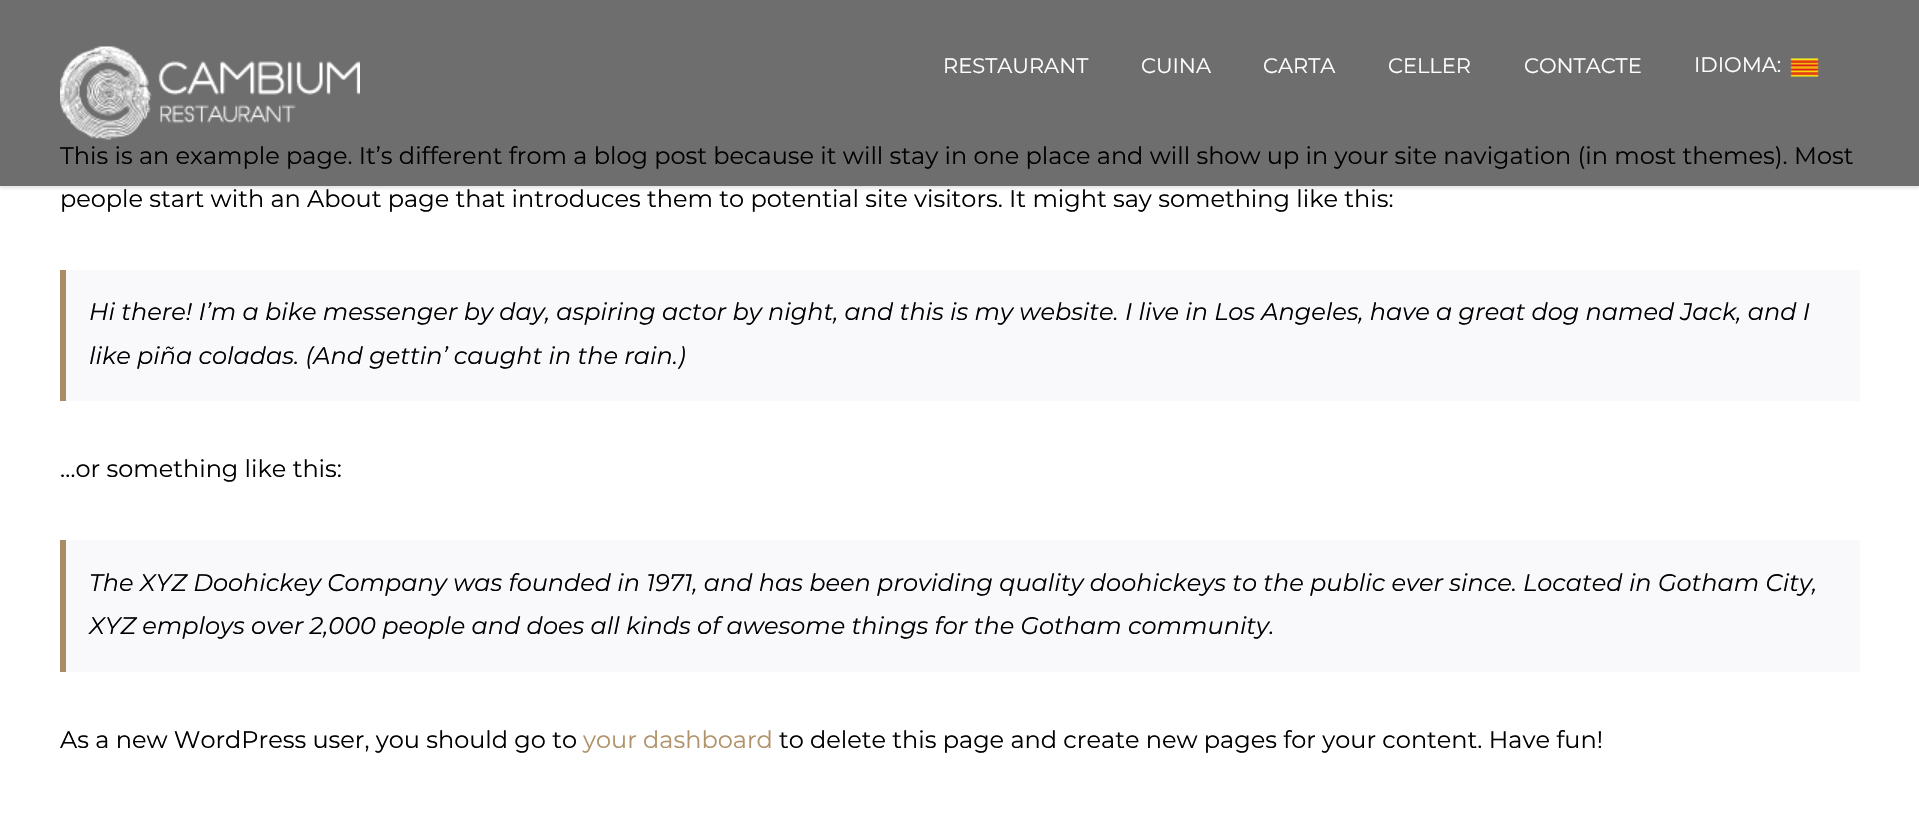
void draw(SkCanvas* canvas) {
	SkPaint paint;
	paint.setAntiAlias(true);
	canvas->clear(0xffffffff);
	paint.setColor(0xff6e6e6e);
	canvas->drawRect(SkRect::MakeXYWH(0, 0, 1919, 186), paint);
	canvas->save();
	canvas->clipRect(SkRect::MakeXYWH(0, 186, 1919, 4));
	paint.setColor(0x1f000000);
	paint.setMaskFilter(SkMaskFilter::MakeBlur(kNormal_SkBlurStyle, 2));
	canvas->drawRect(SkRect::MakeXYWH(0, 2, 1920, 186), paint);
	paint.setMaskFilter(nullptr);
	canvas->restore();
	canvas->drawImageRect(SkImages::DeferredFromEncodedData(SkData::MakeFromFileName("img1.png")), SkRect::MakeXYWH(60, 46, 300, 94), SkSamplingOptions());
	SkFont f1(fontMgr->matchFamilyStyle("Montserrat", SkFontStyle::Normal()), 21);
	f1.setSubpixel(true);
	paint.setColor(0xffffffff);
	canvas->drawString("RESTAURANT", 943, 73, f1, paint);
	canvas->drawString("CUINA", 1141, 73, f1, paint);
	canvas->drawString("CARTA", 1263, 73, f1, paint);
	canvas->drawString("CELLER", 1388, 73, f1, paint);
	canvas->drawString("CONTACTE", 1524, 73, f1, paint);
	canvas->drawString("IDIOMA:", 1694, 72, f1, paint);
	canvas->drawImageRect(SkImages::DeferredFromEncodedData(SkData::MakeFromFileName("img2.png")), SkRect::MakeXYWH(1790, 58, 29, 19), SkSamplingOptions());
	SkFont f2(fontMgr->matchFamilyStyle("Montserrat", SkFontStyle::Normal()), 24);
	f2.setSubpixel(true);
	paint.setColor(0xff000000);
	canvas->drawString("This is an example page. It’s different from a blog post because it will stay in one place and will show up in your site navigation (in most themes). Most", 60, 164, f2, paint);
	canvas->drawString("people start with an About page that introduces them to potential site visitors. It might say something like this:", 60, 207, f2, paint);
	paint.setColor(0xfff9f9fb);
	canvas->drawRect(SkRect::MakeXYWH(66, 270, 1794, 131), paint);
	paint.setColor(0xffab8b65);
	canvas->drawRect(SkRect::MakeXYWH(60, 270, 6, 131), paint);
	SkFont f3(fontMgr->matchFamilyStyle("Montserrat", SkFontStyle::Italic()), 24);
	f3.setSubpixel(true);
	paint.setColor(0xff000000);
	canvas->drawString("Hi there! I’m a bike messenger by day, aspiring actor by night, and this is my website. I live in Los Angeles, have a great dog named Jack, and I", 89, 320, f3, paint);
	canvas->drawString("like piña coladas. (And gettin’ caught in the rain.)", 89, 364, f3, paint);
	canvas->drawString("…or something like this:", 60, 477, f2, paint);
	paint.setColor(0xfff9f9fb);
	canvas->drawRect(SkRect::MakeXYWH(66, 540, 1794, 132), paint);
	paint.setColor(0xffab8b65);
	canvas->drawRect(SkRect::MakeXYWH(60, 540, 6, 132), paint);
	paint.setColor(0xff000000);
	canvas->drawString("The XYZ Doohickey Company was founded in 1971, and has been providing quality doohickeys to the public ever since. Located in Gotham City,", 89, 591, f3, paint);
	canvas->drawString("XYZ employs over 2,000 people and does all kinds of awesome things for the Gotham community.", 89, 634, f3, paint);
	canvas->drawString("As a new WordPress user, you should go to", 60, 748, f2, paint);
	paint.setColor(0xffb0936a);
	canvas->drawString("your dashboard", 583, 748, f2, paint);
	paint.setColor(0xff000000);
	canvas->drawString("to delete this page and create new pages for your content. Have fun!", 779, 748, f2, paint);
}
